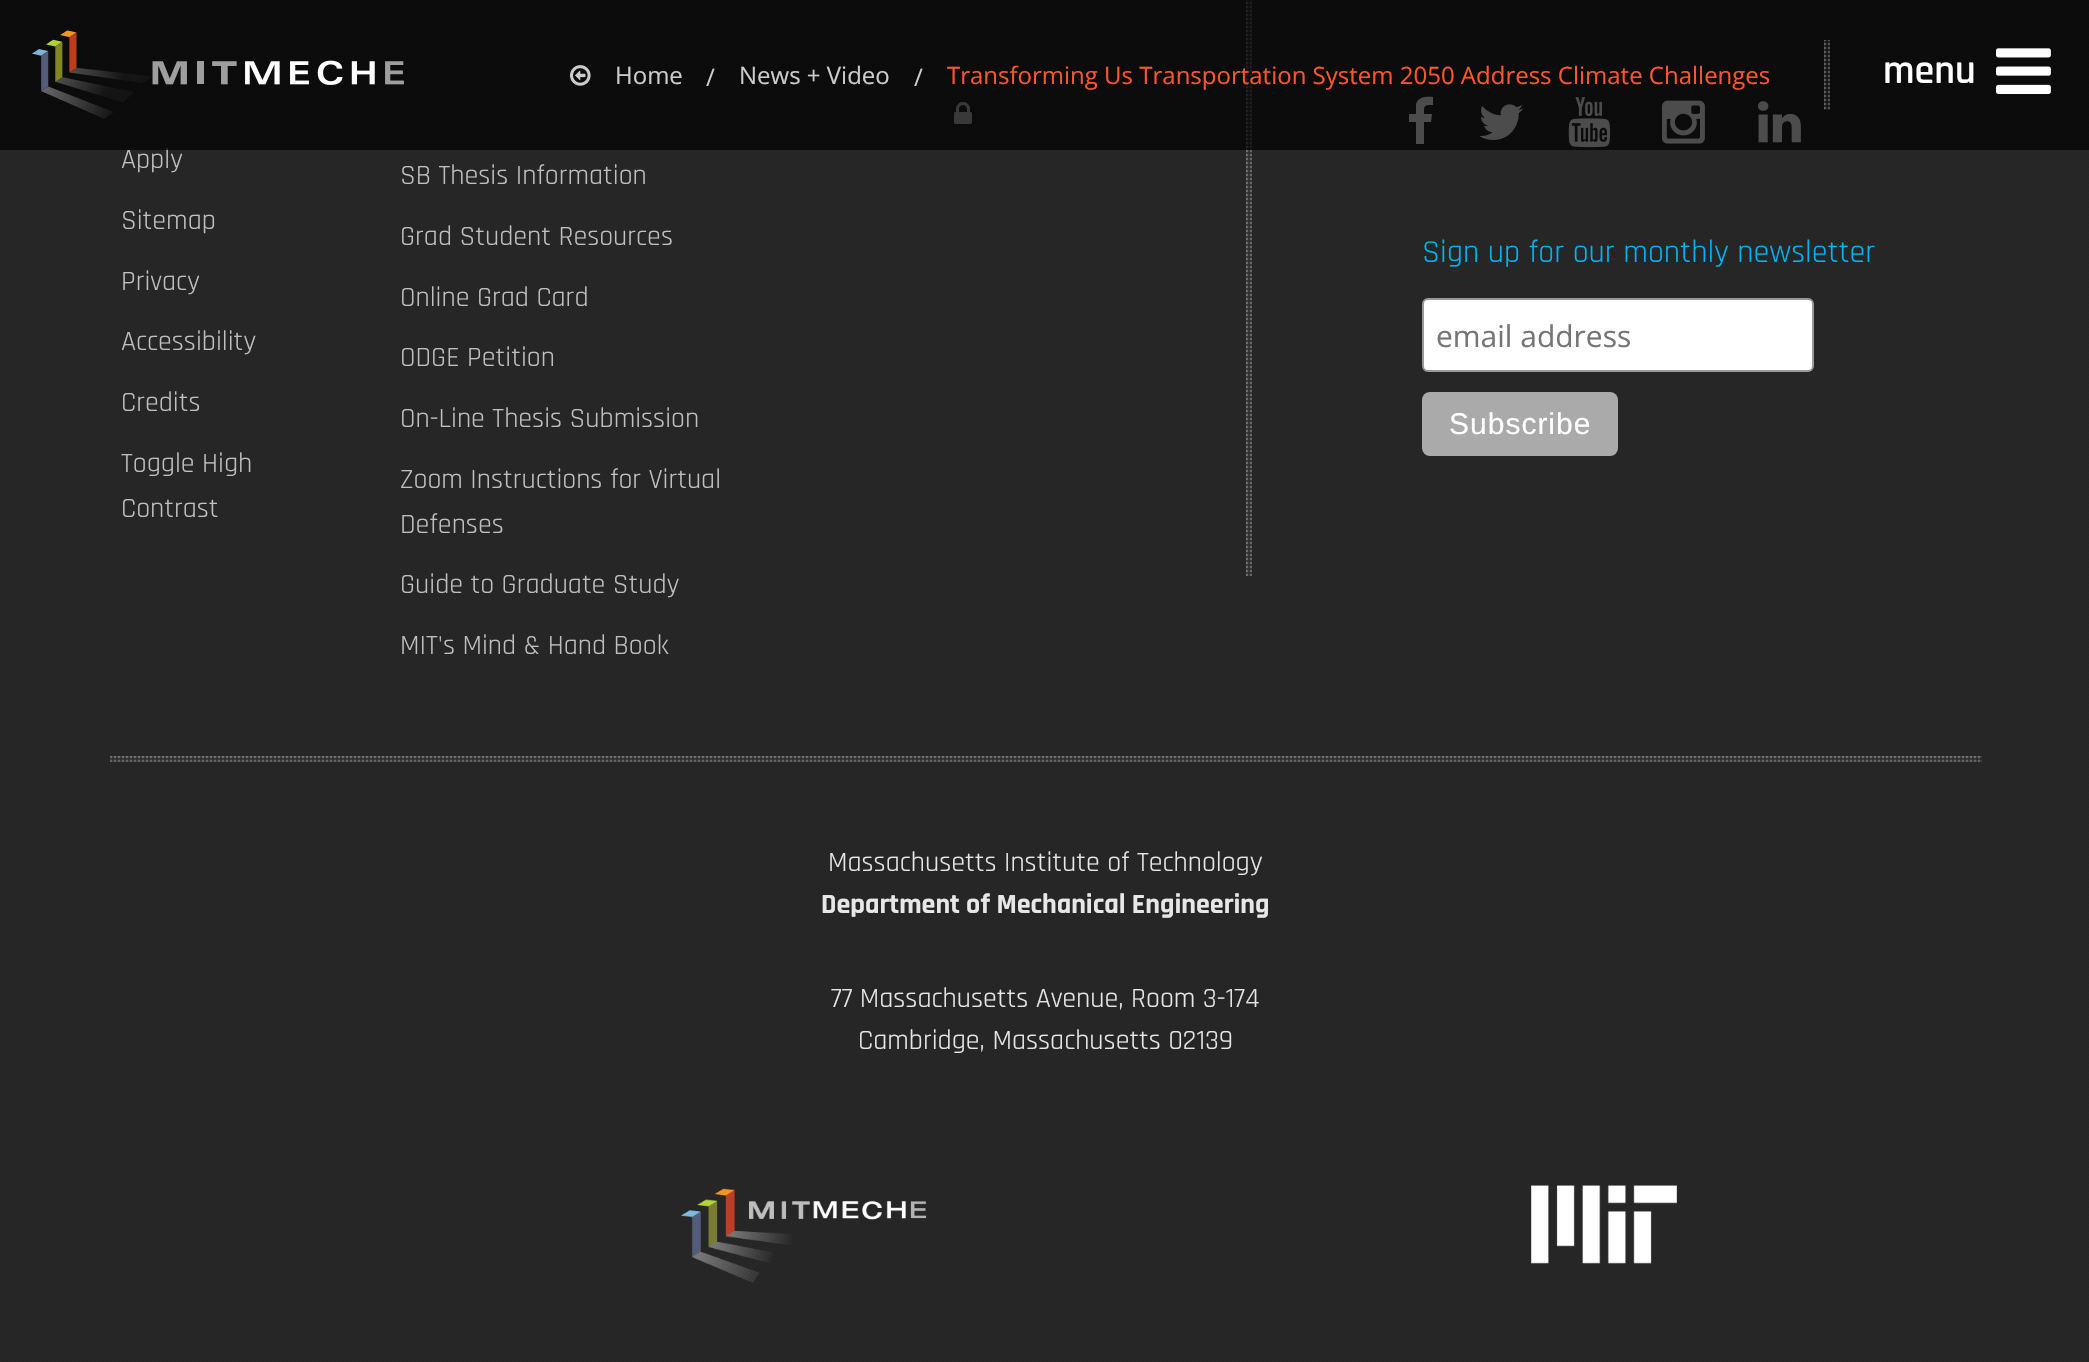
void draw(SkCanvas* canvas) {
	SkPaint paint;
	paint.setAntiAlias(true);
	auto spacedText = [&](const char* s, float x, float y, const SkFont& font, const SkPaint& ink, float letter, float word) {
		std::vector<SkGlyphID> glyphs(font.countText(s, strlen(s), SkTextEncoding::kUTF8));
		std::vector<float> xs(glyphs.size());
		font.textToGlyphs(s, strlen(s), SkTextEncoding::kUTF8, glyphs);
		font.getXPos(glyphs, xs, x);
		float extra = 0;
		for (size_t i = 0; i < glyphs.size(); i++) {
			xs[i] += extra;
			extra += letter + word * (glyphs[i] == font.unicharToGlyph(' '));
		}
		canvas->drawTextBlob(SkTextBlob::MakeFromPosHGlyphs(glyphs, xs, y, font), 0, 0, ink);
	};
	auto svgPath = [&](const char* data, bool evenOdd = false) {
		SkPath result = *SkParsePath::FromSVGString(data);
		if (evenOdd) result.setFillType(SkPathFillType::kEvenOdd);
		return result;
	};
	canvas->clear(0xff2a2a2a);
	canvas->drawImageRect(SkImages::DeferredFromEncodedData(SkData::MakeFromFileName("img5.png")), SkRect::MakeXYWH(0, 0, 2089, 1362), SkSamplingOptions());
	canvas->drawImageRect(SkImages::DeferredFromEncodedData(SkData::MakeFromFileName("img6.png")), SkRect::MakeXYWH(954, 102, 18, 22), SkSamplingOptions());
	SkFont f1(fontMgr->matchFamilyStyle("Rajdhani", SkFontStyle::Normal()), 28);
	f1.setSubpixel(true);
	paint.setColor(0xffc1bfbf);
	canvas->drawString("Apply", 121, 168, f1, paint);
	canvas->drawImageRect(SkImages::DeferredFromEncodedData(SkData::MakeFromFileName("img7.png")), SkRect::MakeXYWH(1246, 0, 6, 576), SkSamplingOptions());
	paint.setColor(0xffffffff);
	canvas->drawPath(svgPath("M1433 97V105C1424 105 1424 105 1424 114H1432L1431 122H1424V144H1416V122H1409V114H1416V104C1418 97 1426 96 1433 97Z"), paint);
	canvas->drawImageRect(SkImages::DeferredFromEncodedData(SkData::MakeFromFileName("img8.png")), SkRect::MakeXYWH(1479, 104, 44, 36), SkSamplingOptions());
	canvas->drawImageRect(SkImages::DeferredFromEncodedData(SkData::MakeFromFileName("img9.png")), SkRect::MakeXYWH(1568, 97, 43, 51), SkSamplingOptions());
	canvas->drawImageRect(SkImages::DeferredFromEncodedData(SkData::MakeFromFileName("img10.png")), SkRect::MakeXYWH(1662, 100, 43, 44), SkSamplingOptions());
	canvas->drawImageRect(SkImages::DeferredFromEncodedData(SkData::MakeFromFileName("img11.png")), SkRect::MakeXYWH(1758, 101, 43, 42), SkSamplingOptions());
	paint.setColor(0xb3000000);
	canvas->drawRect(SkRect::MakeXYWH(0, 0, 2089, 150), paint);
	canvas->drawImageRect(SkImages::DeferredFromEncodedData(SkData::MakeFromFileName("img1.png")), SkRect::MakeXYWH(32, 30, 372, 89), SkSamplingOptions());
	canvas->drawImageRect(SkImages::DeferredFromEncodedData(SkData::MakeFromFileName("img2.png")), SkRect::MakeXYWH(570, 65, 21, 21), SkSamplingOptions());
	SkFont f2(fontMgr->matchFamilyStyle("Open Sans", SkFontStyle::Normal()), 24);
	f2.setSubpixel(true);
	paint.setColor(0xffcccccc);
	canvas->drawString("Home", 615, 84, f2, paint);
	canvas->drawString("/", 706, 86, f2, paint);
	canvas->drawString("News + Video", 739, 84, f2, paint);
	canvas->drawString("/", 914, 86, f2, paint);
	paint.setColor(0xffff552c);
	canvas->drawString("Transforming Us Transportation System 2050 Address Climate Challenges", 947, 84, f2, paint);
	canvas->drawImageRect(SkImages::DeferredFromEncodedData(SkData::MakeFromFileName("img3.png")), SkRect::MakeXYWH(1824, 40, 6, 70), SkSamplingOptions());
	SkFont f3(fontMgr->matchFamilyStyle("Rajdhani", SkFontStyle(600, SkFontStyle::kNormal_Width, SkFontStyle::kUpright_Slant)), 40);
	f3.setSubpixel(true);
	paint.setColor(0xffffffff);
	canvas->drawString("menu", 1883, 83, f3, paint);
	canvas->drawImageRect(SkImages::DeferredFromEncodedData(SkData::MakeFromFileName("img4.png")), SkRect::MakeXYWH(1996, 48, 55, 46), SkSamplingOptions());
	paint.setColor(0xffc1bfbf);
	canvas->drawString("Sitemap", 121, 229, f1, paint);
	canvas->drawString("Privacy", 121, 290, f1, paint);
	canvas->drawString("Accessibility", 121, 350, f1, paint);
	canvas->drawString("Credits", 121, 411, f1, paint);
	canvas->drawString("Toggle High", 121, 472, f1, paint);
	canvas->drawString("Contrast", 121, 517, f1, paint);
	canvas->drawString("SB Thesis Information", 400, 184, f1, paint);
	canvas->drawString("Grad Student Resources", 400, 245, f1, paint);
	canvas->drawString("Online Grad Card", 400, 306, f1, paint);
	canvas->drawString("ODGE Petition", 400, 366, f1, paint);
	canvas->drawString("On-Line Thesis Submission", 400, 427, f1, paint);
	canvas->drawString("Zoom Instructions for Virtual", 400, 488, f1, paint);
	canvas->drawString("Defenses", 400, 533, f1, paint);
	canvas->drawString("Guide to Graduate Study", 400, 593, f1, paint);
	canvas->drawString("MIT's Mind & Hand Book", 400, 654, f1, paint);
	SkFont f4(fontMgr->matchFamilyStyle("Rajdhani", SkFontStyle::Normal()), 32);
	f4.setSubpixel(true);
	paint.setColor(0xff02b2f4);
	canvas->drawString("Sign up for our monthly newsletter", 1422, 262, f4, paint);
	paint.setColor(0xffffffff);
	canvas->drawRoundRect(SkRect::MakeXYWH(1423, 299, 390, 72), 5, 5, paint);
	paint.setStroke(true);
	paint.setStrokeWidth(2);
	paint.setColor(0xff999999);
	canvas->drawRoundRect(SkRect::MakeXYWH(1423, 299, 390, 72), 5, 5, paint);
	SkFont f5(fontMgr->matchFamilyStyle("Open Sans", SkFontStyle::Normal()), 30);
	f5.setSubpixel(true);
	paint.setStroke(false);
	paint.setColor(0xff757575);
	canvas->drawString("email address", 1436, 347, f5, paint);
	paint.setColor(0xffaaaaaa);
	canvas->drawRoundRect(SkRect::MakeXYWH(1422, 392, 196, 64), 8, 8, paint);
	SkFont f6(fontMgr->matchFamilyStyle("Liberation Sans", SkFontStyle::Normal()), 30);
	f6.setSubpixel(true);
	paint.setColor(0xffffffff);
	spacedText("Subscribe", 1449, 434, f6, paint, 1, 0);
	canvas->drawImageRect(SkImages::DeferredFromEncodedData(SkData::MakeFromFileName("img12.png")), SkRect::MakeXYWH(110, 756, 1872, 6), SkSamplingOptions());
	paint.setColor(0xffe7e7e7);
	canvas->drawString("Massachusetts Institute of Technology", 828, 871, f1, paint);
	SkFont f7(fontMgr->matchFamilyStyle("Rajdhani", SkFontStyle::Bold()), 28);
	f7.setSubpixel(true);
	canvas->drawString("Department of Mechanical Engineering", 821, 913, f7, paint);
	canvas->drawString("77 Massachusetts Avenue, Room 3-174", 831, 1007, f1, paint);
	canvas->drawString("Cambridge, Massachusetts 02139", 858, 1049, f1, paint);
	canvas->drawImageRect(SkImages::DeferredFromEncodedData(SkData::MakeFromFileName("img13.png")), SkRect::MakeXYWH(681, 1188, 246, 95), SkSamplingOptions());
	canvas->drawImageRect(SkImages::DeferredFromEncodedData(SkData::MakeFromFileName("img14.png")), SkRect::MakeXYWH(1531, 1185, 146, 79), SkSamplingOptions());
}
